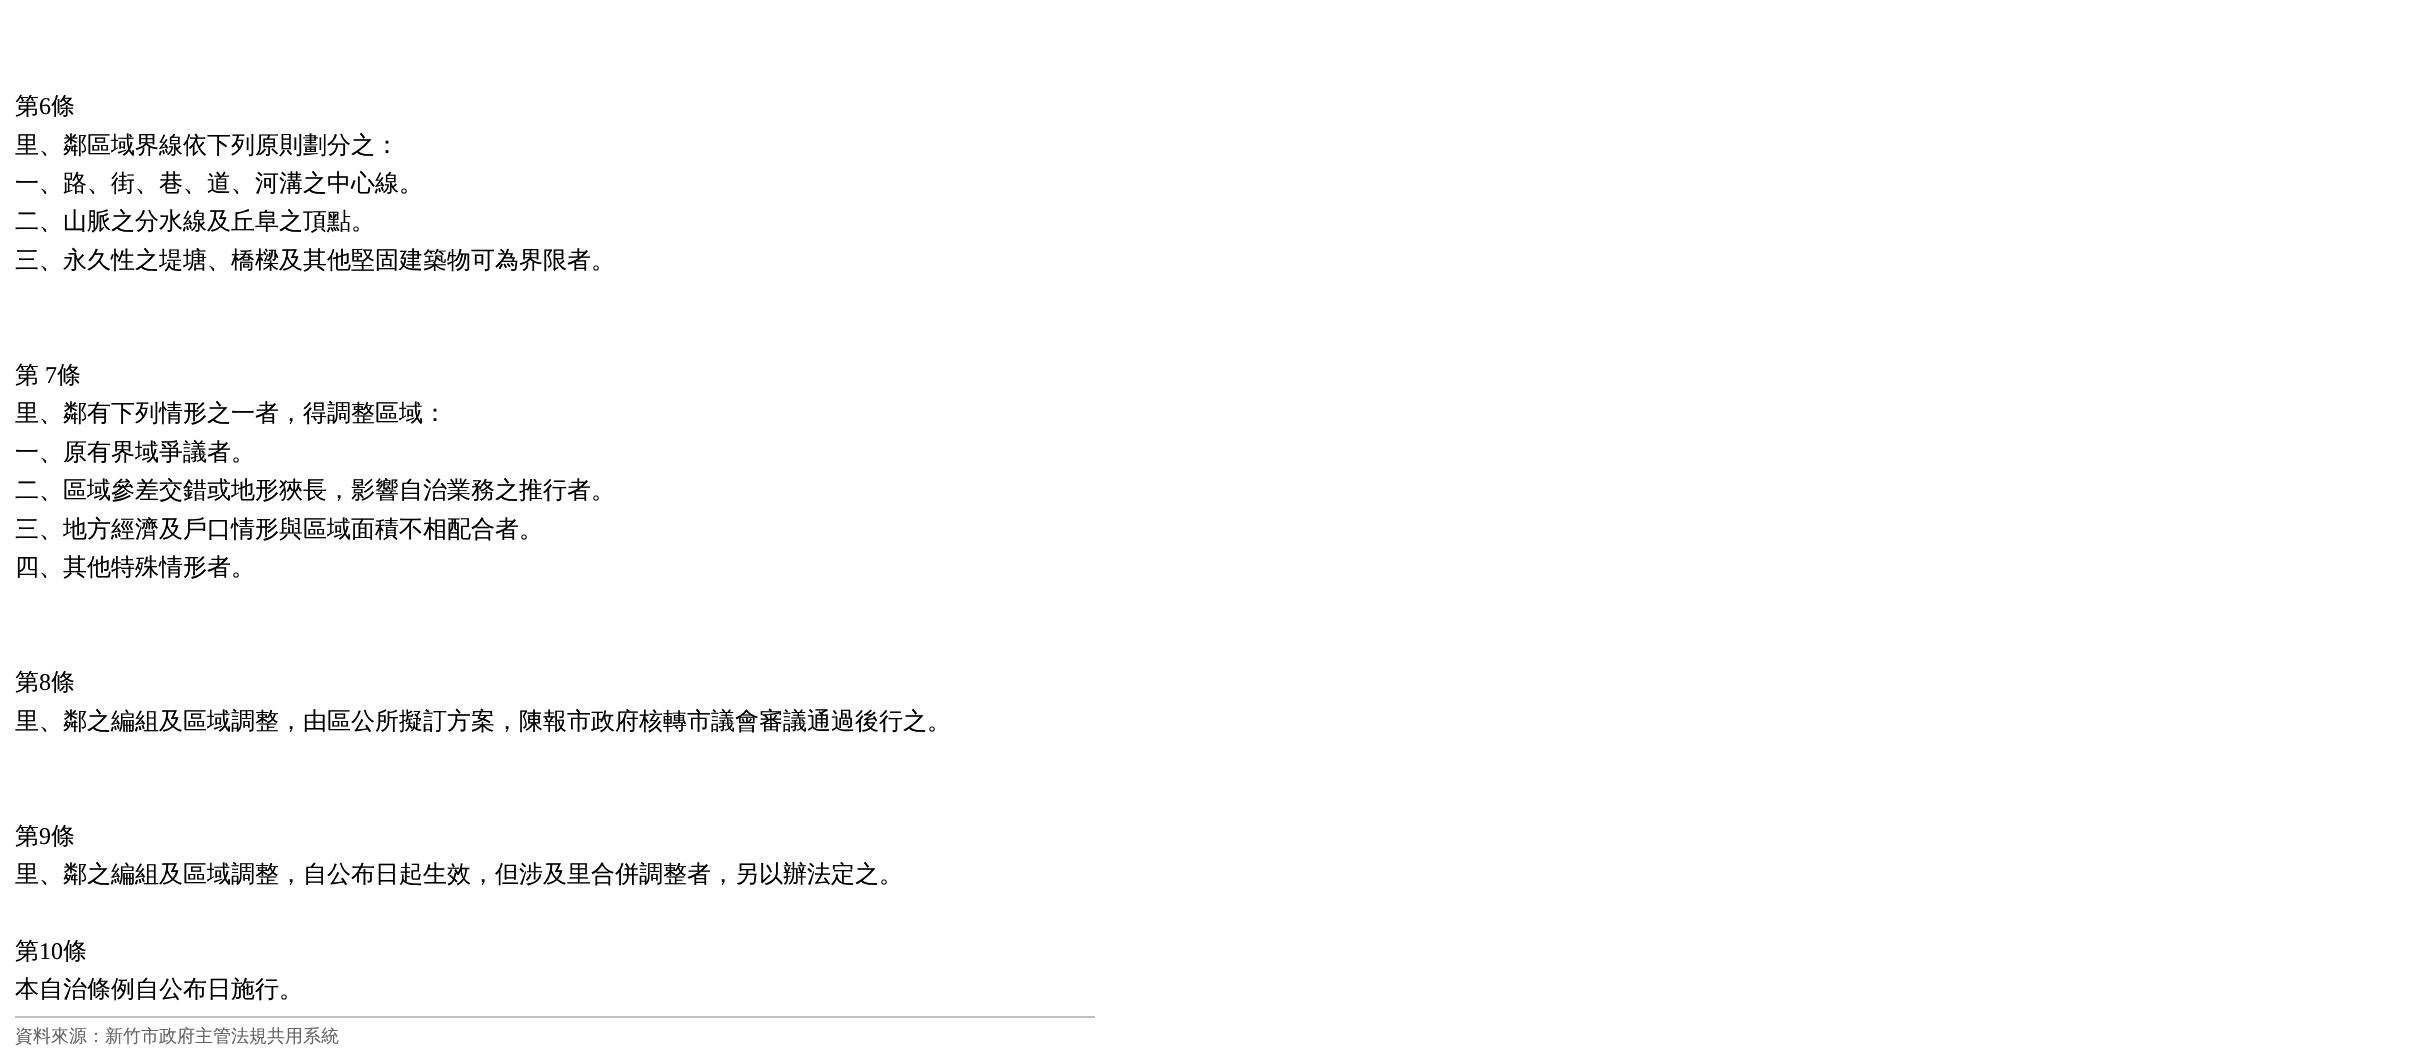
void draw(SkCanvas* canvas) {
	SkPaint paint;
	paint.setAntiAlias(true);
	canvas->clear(0xffffffff);
	SkFont f1(fontMgr->matchFamilyStyle("WenQuanYi Zen Hei", SkFontStyle(500, SkFontStyle::kNormal_Width, SkFontStyle::kUpright_Slant)), 24);
	f1.setSubpixel(true);
	paint.setColor(0xff000000);
	canvas->drawString("第", 15, 114, f1, paint);
	SkFont f2(fontMgr->matchFamilyStyle("Liberation Serif", SkFontStyle::Normal()), 24);
	f2.setSubpixel(true);
	canvas->drawString("6", 39, 114, f2, paint);
	canvas->drawString("條", 51, 114, f1, paint);
	canvas->drawString("里、鄰區域界線依下列原則劃分之：", 15, 153, f1, paint);
	canvas->drawString("一、路、街、巷、道、河溝之中心線。", 15, 191, f1, paint);
	canvas->drawString("二、山脈之分水線及丘阜之頂點。", 15, 229, f1, paint);
	canvas->drawString("三、永久性之堤塘、橋樑及其他堅固建築物可為界限者。", 15, 268, f1, paint);
	canvas->drawString("第", 15, 383, f1, paint);
	canvas->drawString("7", 45, 383, f2, paint);
	canvas->drawString("條", 57, 383, f1, paint);
	canvas->drawString("里、鄰有下列情形之一者，得調整區域：", 15, 421, f1, paint);
	canvas->drawString("一、原有界域爭議者。", 15, 460, f1, paint);
	canvas->drawString("二、區域參差交錯或地形狹長，影響自治業務之推行者。", 15, 498, f1, paint);
	canvas->drawString("三、地方經濟及戶口情形與區域面積不相配合者。", 15, 537, f1, paint);
	canvas->drawString("四、其他特殊情形者。", 15, 575, f1, paint);
	canvas->drawString("第", 15, 690, f1, paint);
	canvas->drawString("8", 39, 690, f2, paint);
	canvas->drawString("條", 51, 690, f1, paint);
	canvas->drawString("里、鄰之編組及區域調整，由區公所擬訂方案，陳報市政府核轉市議會審議通過後行之。", 15, 729, f1, paint);
	canvas->drawString("第", 15, 844, f1, paint);
	canvas->drawString("9", 39, 844, f2, paint);
	canvas->drawString("條", 51, 844, f1, paint);
	canvas->drawString("里、鄰之編組及區域調整，自公布日起生效，但涉及里合併調整者，另以辦法定之。", 15, 882, f1, paint);
	canvas->drawString("第", 15, 959, f1, paint);
	canvas->drawString("10", 39, 959, f2, paint);
	canvas->drawString("條", 63, 959, f1, paint);
	canvas->drawString("本自治條例自公布日施行。", 15, 997, f1, paint);
	paint.setColor(0xffc0c0c0);
	canvas->drawRect(SkRect::MakeXYWH(15, 1016, 1080, 2), paint);
	SkFont f3(fontMgr->matchFamilyStyle("WenQuanYi Zen Hei", SkFontStyle(500, SkFontStyle::kNormal_Width, SkFontStyle::kUpright_Slant)), 18);
	f3.setSubpixel(true);
	paint.setColor(0xff666666);
	canvas->drawString("資料來源：新竹市政府主管法規共用系統", 15, 1042, f3, paint);
}
